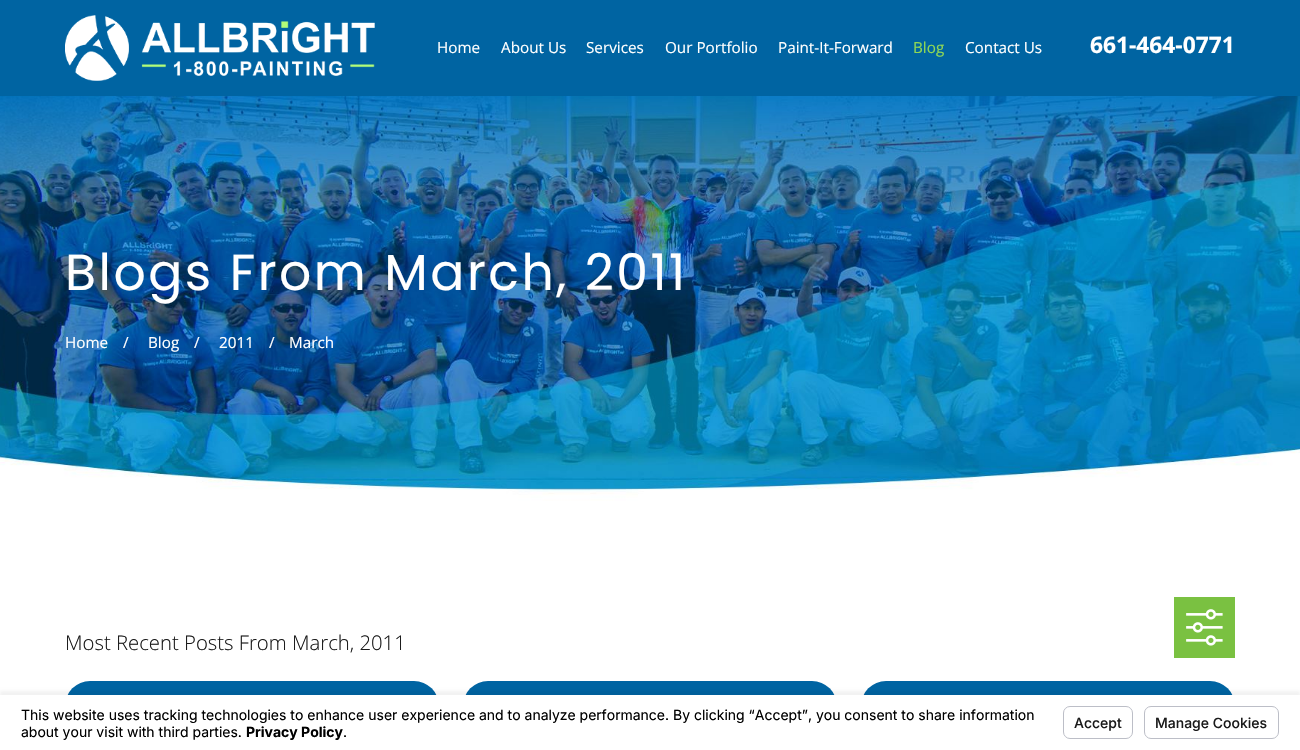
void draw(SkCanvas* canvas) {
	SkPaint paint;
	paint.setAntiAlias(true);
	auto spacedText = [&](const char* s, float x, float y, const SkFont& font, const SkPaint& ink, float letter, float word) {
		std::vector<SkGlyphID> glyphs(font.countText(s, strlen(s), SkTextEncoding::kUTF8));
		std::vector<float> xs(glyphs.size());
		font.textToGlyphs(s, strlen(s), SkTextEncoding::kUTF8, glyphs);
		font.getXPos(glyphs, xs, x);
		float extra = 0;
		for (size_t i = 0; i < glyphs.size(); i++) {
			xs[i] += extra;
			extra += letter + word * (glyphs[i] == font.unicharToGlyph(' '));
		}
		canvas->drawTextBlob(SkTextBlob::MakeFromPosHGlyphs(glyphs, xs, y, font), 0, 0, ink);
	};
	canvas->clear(0xffffffff);
	paint.setColor(0xff0064a2);
	canvas->drawRect(SkRect::MakeXYWH(0, 0, 1300, 96), paint);
	canvas->drawImageRect(SkImages::DeferredFromEncodedData(SkData::MakeFromFileName("img1.png")), SkRect::MakeXYWH(65, 15, 310, 66), SkSamplingOptions());
	SkFont f1(fontMgr->matchFamilyStyle("Open Sans", SkFontStyle::Normal()), 15.25);
	f1.setSubpixel(true);
	paint.setColor(0xffffffff);
	canvas->drawString("Home", 437, 53, f1, paint);
	canvas->drawString("About Us", 501, 53, f1, paint);
	canvas->drawString("Services", 586, 53, f1, paint);
	canvas->drawString("Our Portfolio", 665, 53, f1, paint);
	canvas->drawString("Paint-It-Forward", 778, 53, f1, paint);
	paint.setColor(0xff8fd855);
	canvas->drawString("Blog", 913, 53, f1, paint);
	paint.setColor(0xffffffff);
	canvas->drawString("Contact Us", 965, 53, f1, paint);
	SkFont f2(fontMgr->matchFamilyStyle("Open Sans", SkFontStyle::Bold()), 22.75);
	f2.setSubpixel(true);
	canvas->drawString("661-464-0771", 1090, 53, f2, paint);
	canvas->drawImageRect(SkImages::DeferredFromEncodedData(SkData::MakeFromFileName("img2.png")), SkRect::MakeXYWH(0, 96, 1300, 405), SkSamplingOptions());
	SkFont f3(fontMgr->matchFamilyStyle("Poppins", SkFontStyle::Normal()), 50.5);
	f3.setSubpixel(true);
	spacedText("Blogs From March, 2011", 65, 290, f3, paint, 2.5, 0);
	canvas->drawString("Home", 65, 348, f1, paint);
	canvas->drawString("/", 123, 348, f1, paint);
	canvas->drawString("Blog", 148, 348, f1, paint);
	canvas->drawString("/", 194, 348, f1, paint);
	canvas->drawString("2011", 219, 348, f1, paint);
	canvas->drawString("/", 269, 348, f1, paint);
	canvas->drawString("March", 289, 348, f1, paint);
	SkFont f4(fontMgr->matchFamilyStyle("Open Sans", SkFontStyle(300, SkFontStyle::kNormal_Width, SkFontStyle::kUpright_Slant)), 20.3);
	f4.setSubpixel(true);
	paint.setColor(0xff1a1a1a);
	canvas->drawString("Most Recent Posts From March, 2011", 65, 650, f4, paint);
	paint.setColor(0xff7ac141);
	canvas->drawRect(SkRect::MakeXYWH(1174, 597, 61, 61), paint);
	canvas->drawImageRect(SkImages::DeferredFromEncodedData(SkData::MakeFromFileName("img3.png")), SkRect::MakeXYWH(1186, 609, 37, 37), SkSamplingOptions());
	paint.setColor(0xff0064a2);
	canvas->drawRoundRect(SkRect::MakeXYWH(65, 681, 374, 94), 25, 25, paint);
	canvas->drawRoundRect(SkRect::MakeXYWH(463, 681, 374, 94), 25, 25, paint);
	canvas->drawRoundRect(SkRect::MakeXYWH(861, 681, 374, 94), 25, 25, paint);
	paint.setColor(0x0d000000);
	paint.setMaskFilter(SkMaskFilter::MakeBlur(kNormal_SkBlurStyle, 1.5));
	canvas->drawRect(SkRect::MakeXYWH(0, 691, 1300, 55), paint);
	paint.setMaskFilter(nullptr);
	paint.setColor(0xffffffff);
	canvas->drawRect(SkRect::MakeXYWH(0, 695, 1300, 55), paint);
	SkFont f5(fontMgr->matchFamilyStyle("Inter", SkFontStyle::Normal()), 14);
	f5.setSubpixel(true);
	paint.setColor(0xff000000);
	canvas->drawString("This website uses tracking technologies to enhance user experience and to analyze performance. By clicking “Accept”, you consent to share information", 21, 720, f5, paint);
	canvas->drawString("about your visit with third parties.", 21, 737, f5, paint);
	SkFont f6(fontMgr->matchFamilyStyle("Inter", SkFontStyle::Bold()), 14);
	f6.setSubpixel(true);
	canvas->drawString("Privacy Policy", 246, 737, f6, paint);
	canvas->drawString(".", 343, 737, f5, paint);
	paint.setStroke(true);
	paint.setStrokeWidth(1);
	paint.setColor(0xffbcbec7);
	canvas->drawRoundRect(SkRect::MakeXYWH(1063.5, 706.5, 69, 32), 6.5, 6.5, paint);
	SkFont f7(fontMgr->matchFamilyStyle("Inter", SkFontStyle(500, SkFontStyle::kNormal_Width, SkFontStyle::kUpright_Slant)), 14);
	f7.setSubpixel(true);
	paint.setStroke(false);
	paint.setColor(0xff1a1a1a);
	canvas->drawString("Accept", 1074, 728, f7, paint);
	paint.setStroke(true);
	paint.setColor(0xffbcbec7);
	canvas->drawRoundRect(SkRect::MakeXYWH(1144.5, 706.5, 134, 32), 6.5, 6.5, paint);
	paint.setStroke(false);
	paint.setColor(0xff1a1a1a);
	canvas->drawString("Manage Cookies", 1155, 728, f7, paint);
}
